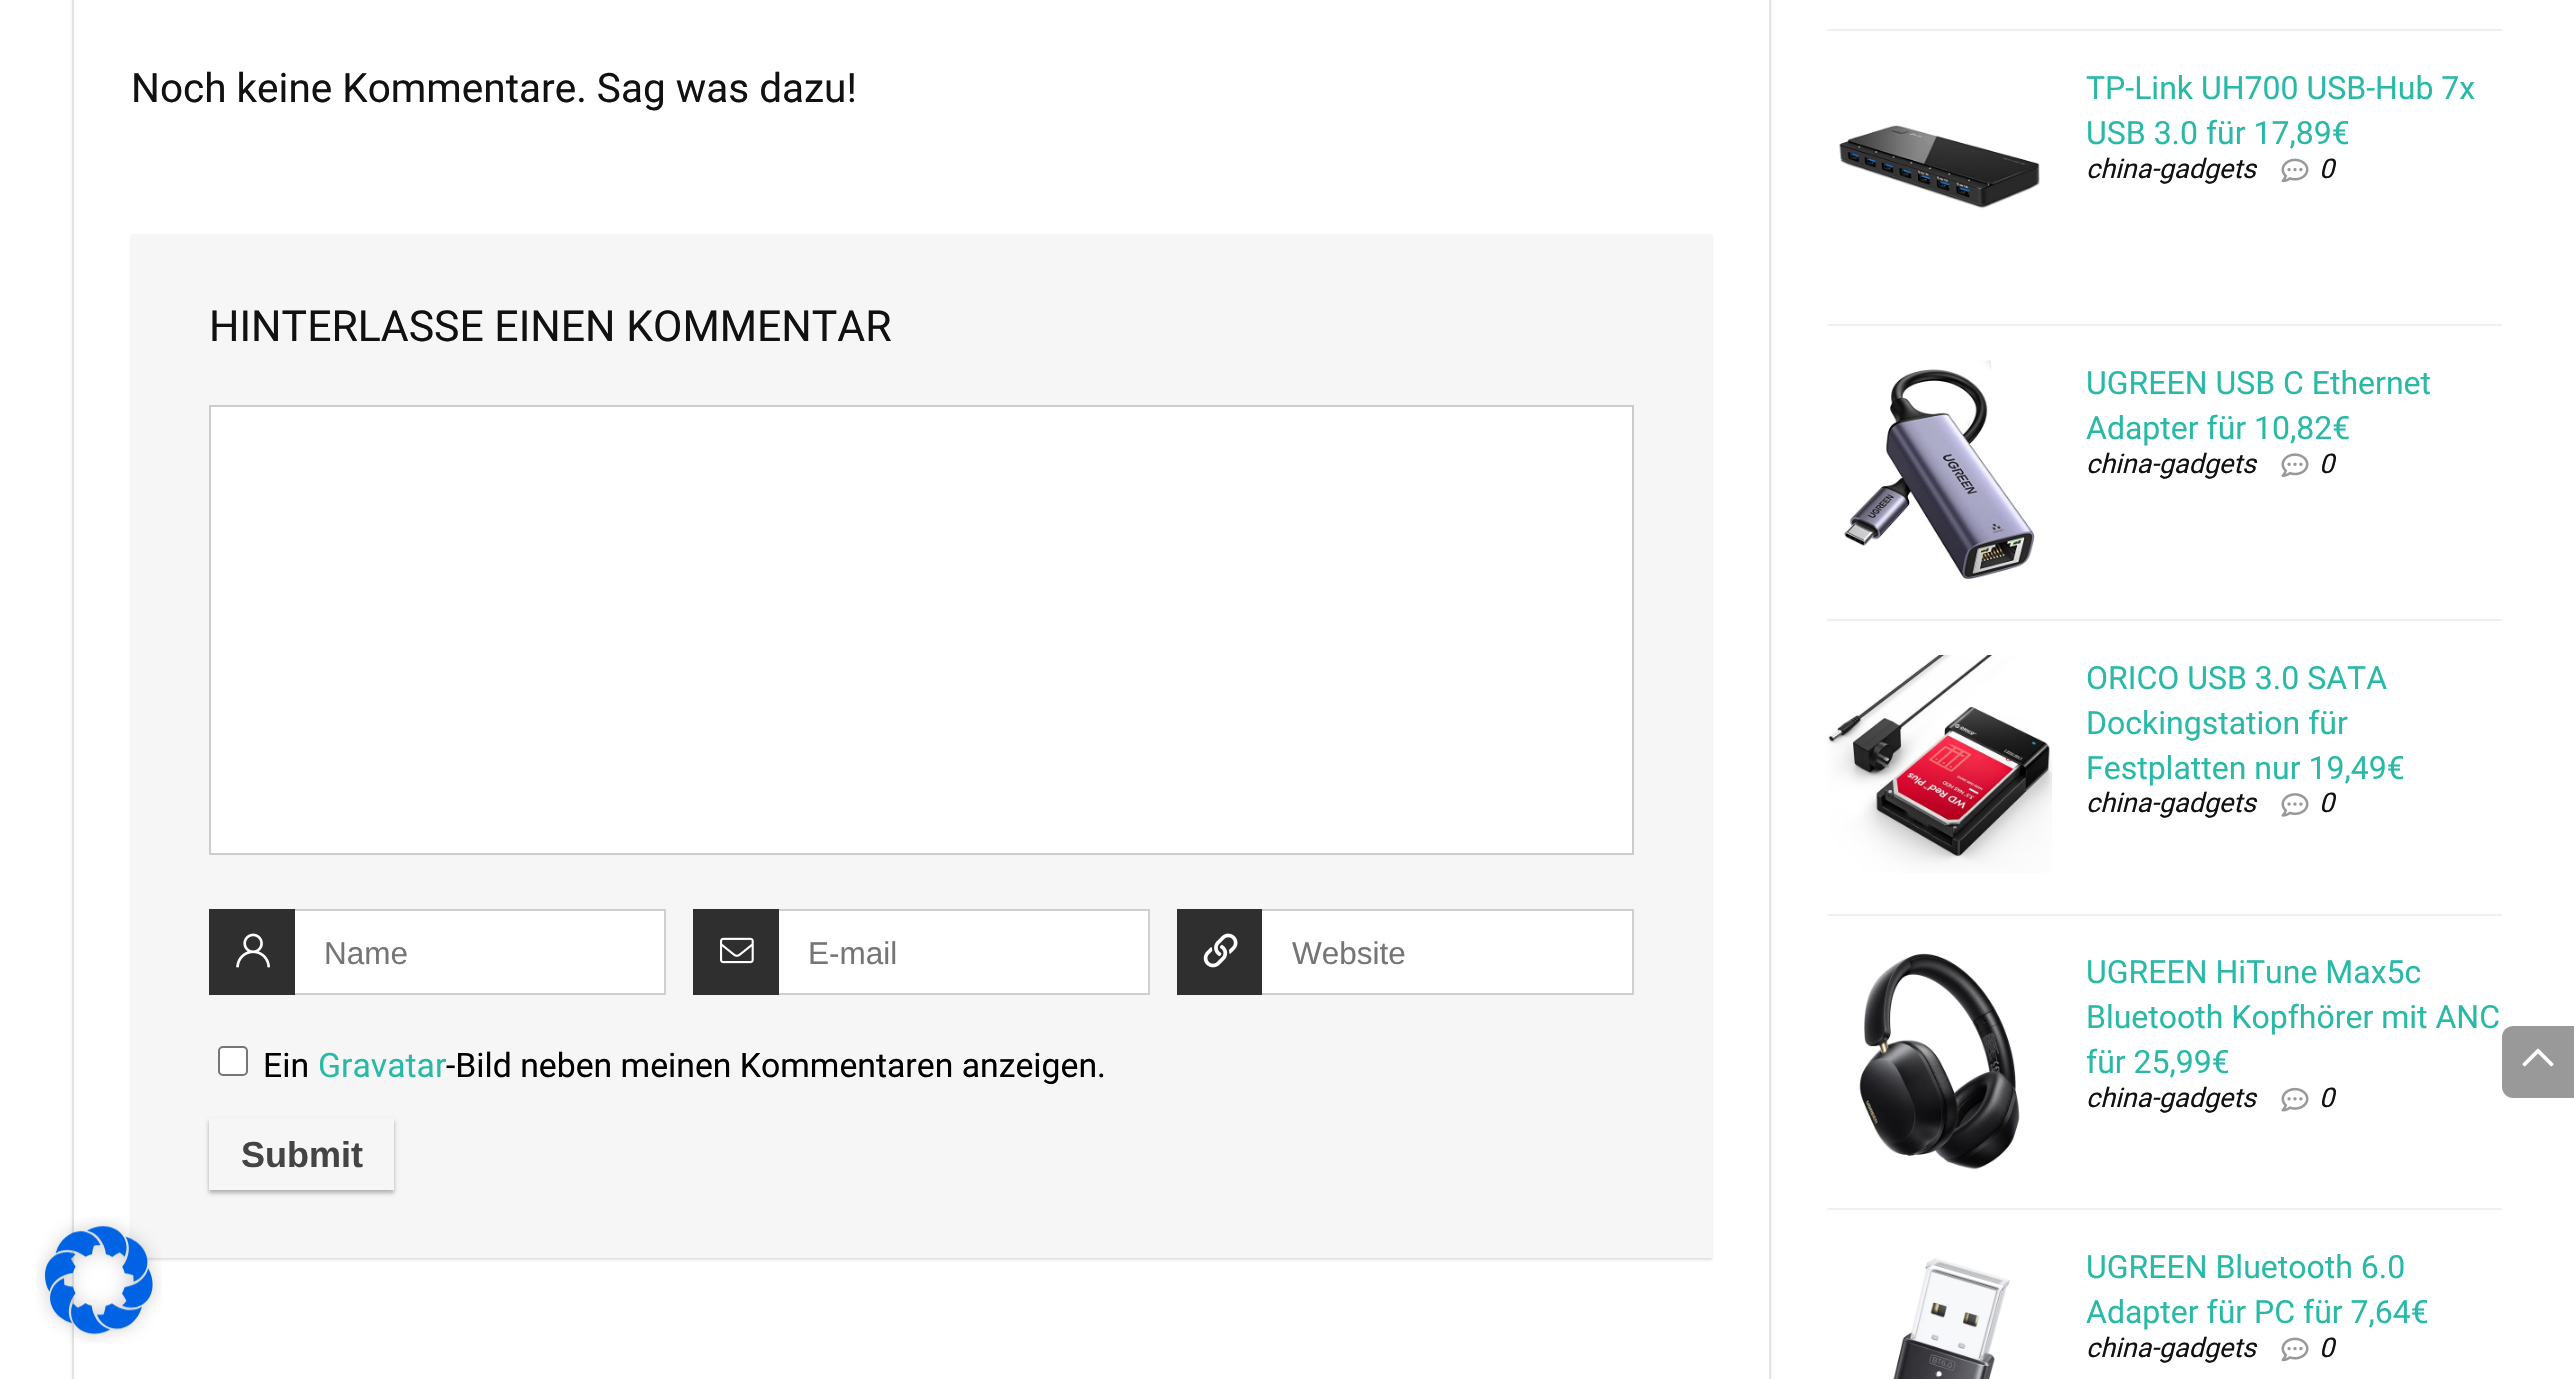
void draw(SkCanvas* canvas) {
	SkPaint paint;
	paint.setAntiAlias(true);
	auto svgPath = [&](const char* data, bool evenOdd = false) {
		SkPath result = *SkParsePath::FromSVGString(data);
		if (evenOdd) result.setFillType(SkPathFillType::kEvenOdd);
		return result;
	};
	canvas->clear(0xffffffff);
	paint.setColor(0xffececec);
	paint.setMaskFilter(SkMaskFilter::MakeBlur(kNormal_SkBlurStyle, 2));
	canvas->drawRect(SkRect::MakeXYWH(72, -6, 1699, 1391), paint);
	paint.setMaskFilter(nullptr);
	paint.setColor(0xffffffff);
	canvas->drawRect(SkRect::MakeXYWH(73, -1, 1697, 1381), paint);
	paint.setStroke(true);
	paint.setStrokeWidth(2);
	paint.setColor(0xffe3e3e3);
	canvas->drawRect(SkRect::MakeXYWH(73, -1, 1697, 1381), paint);
	SkFont f1(fontMgr->matchFamilyStyle("Roboto", SkFontStyle::Normal()), 40.5);
	f1.setSubpixel(true);
	paint.setStroke(false);
	paint.setColor(0xff111111);
	canvas->drawString("Noch keine Kommentare. Sag was dazu!", 131, 102, f1, paint);
	paint.setColor(0x1f000000);
	paint.setMaskFilter(SkMaskFilter::MakeBlur(kNormal_SkBlurStyle, 1));
	canvas->drawRect(SkRect::MakeXYWH(131, 236, 1581, 1024), paint);
	paint.setMaskFilter(nullptr);
	paint.setColor(0xfff6f6f6);
	canvas->drawRect(SkRect::MakeXYWH(131, 234, 1581, 1024), paint);
	SkFont f2(fontMgr->matchFamilyStyle("Roboto", SkFontStyle::Normal()), 42.75);
	f2.setSubpixel(true);
	paint.setColor(0xff111111);
	canvas->drawString("HINTERLASSE EINEN KOMMENTAR", 209, 341, f2, paint);
	paint.setColor(0xffffffff);
	canvas->drawRect(SkRect::MakeXYWH(210, 406, 1423, 448), paint);
	paint.setStroke(true);
	paint.setColor(0xffcccccc);
	canvas->drawRect(SkRect::MakeXYWH(210, 406, 1423, 448), paint);
	paint.setStroke(false);
	paint.setColor(0xffffffff);
	canvas->drawRect(SkRect::MakeXYWH(295, 911, 369, 82), paint);
	paint.setStroke(true);
	paint.setColor(0xffcbd0d2);
	canvas->drawRect(SkRect::MakeXYWH(210, 910, 455, 84), paint);
	paint.setStroke(false);
	paint.setColor(0xff2f2f2f);
	canvas->drawRect(SkRect::MakeXYWH(209, 909, 86, 86), paint);
	canvas->drawImageRect(SkImages::DeferredFromEncodedData(SkData::MakeFromFileName("img1.png")), SkRect::MakeXYWH(236, 933, 34, 35), SkSamplingOptions());
	SkFont f3(fontMgr->matchFamilyStyle("Liberation Sans", SkFontStyle::Normal()), 31.5);
	f3.setSubpixel(true);
	paint.setColor(0xff757575);
	canvas->drawString("Name", 324, 964, f3, paint);
	paint.setColor(0xffffffff);
	canvas->drawRect(SkRect::MakeXYWH(779, 911, 369, 82), paint);
	paint.setStroke(true);
	paint.setColor(0xffcbd0d2);
	canvas->drawRect(SkRect::MakeXYWH(694, 910, 455, 84), paint);
	paint.setStroke(false);
	paint.setColor(0xff2f2f2f);
	canvas->drawRect(SkRect::MakeXYWH(693, 909, 86, 86), paint);
	canvas->drawImageRect(SkImages::DeferredFromEncodedData(SkData::MakeFromFileName("img2.png")), SkRect::MakeXYWH(720, 937, 34, 27), SkSamplingOptions());
	paint.setColor(0xff757575);
	canvas->drawString("E-mail", 808, 964, f3, paint);
	paint.setColor(0xffffffff);
	canvas->drawRect(SkRect::MakeXYWH(1262, 911, 370, 82), paint);
	paint.setStroke(true);
	paint.setColor(0xffcbd0d2);
	canvas->drawRect(SkRect::MakeXYWH(1178, 910, 455, 84), paint);
	paint.setStroke(false);
	paint.setColor(0xff2f2f2f);
	canvas->drawRect(SkRect::MakeXYWH(1177, 909, 85, 86), paint);
	canvas->drawImageRect(SkImages::DeferredFromEncodedData(SkData::MakeFromFileName("img3.png")), SkRect::MakeXYWH(1203, 933, 35, 35), SkSamplingOptions());
	paint.setColor(0xff757575);
	canvas->drawString("Website", 1292, 964, f3, paint);
	paint.setColor(0xffffffff);
	canvas->drawRoundRect(SkRect::MakeXYWH(219, 1047, 28, 28), 4, 4, paint);
	paint.setStroke(true);
	paint.setColor(0xff767676);
	canvas->drawRoundRect(SkRect::MakeXYWH(219, 1047, 28, 28), 4, 4, paint);
	SkFont f4(fontMgr->matchFamilyStyle("Roboto", SkFontStyle::Normal()), 33.75);
	f4.setSubpixel(true);
	paint.setStroke(false);
	paint.setColor(0xff000000);
	canvas->drawString("Ein", 263, 1077, f4, paint);
	paint.setColor(0xff29b9a6);
	canvas->drawString("Gravatar", 318, 1077, f4, paint);
	paint.setColor(0xff000000);
	canvas->drawString("-Bild neben meinen Kommentaren anzeigen.", 446, 1077, f4, paint);
	paint.setColor(0x14000000);
	paint.setMaskFilter(SkMaskFilter::MakeBlur(kNormal_SkBlurStyle, 2));
	canvas->drawRect(SkRect::MakeXYWH(209, 1121, 185, 72), paint);
	paint.setMaskFilter(nullptr);
	paint.setColor(0x4d3c4043);
	paint.setMaskFilter(SkMaskFilter::MakeBlur(kNormal_SkBlurStyle, 2));
	canvas->drawRect(SkRect::MakeXYWH(209, 1121, 185, 72), paint);
	paint.setMaskFilter(nullptr);
	paint.setColor(0xfff6f6f6);
	canvas->drawRect(SkRect::MakeXYWH(209, 1118, 185, 72), paint);
	SkFont f5(fontMgr->matchFamilyStyle("Liberation Sans", SkFontStyle::Bold()), 36);
	f5.setSubpixel(true);
	paint.setColor(0xff444444);
	canvas->drawString("Submit", 241, 1167, f5, paint);
	paint.setColor(0xfff0f0f0);
	canvas->drawRect(SkRect::MakeXYWH(1827, 29, 675, 2), paint);
	canvas->drawRect(SkRect::MakeXYWH(1827, 324, 675, 2), paint);
	canvas->drawImageRect(SkImages::DeferredFromEncodedData(SkData::MakeFromFileName("img4.png")), SkRect::MakeXYWH(1839, 125, 201, 84), SkSamplingOptions());
	SkFont f6(fontMgr->matchFamilyStyle("Roboto", SkFontStyle::Normal()), 32);
	f6.setSubpixel(true);
	paint.setColor(0xff29b9a6);
	canvas->drawString("TP-Link UH700 USB-Hub 7x", 2086, 99, f6, paint);
	canvas->drawString("USB 3.0 für 17,89€", 2086, 144, f6, paint);
	SkFont f7(fontMgr->matchFamilyStyle("Roboto", SkFontStyle::Italic()), 27);
	f7.setSubpixel(true);
	paint.setColor(0xff111111);
	canvas->drawString("china-gadgets", 2086, 178, f7, paint);
	canvas->drawImageRect(SkImages::DeferredFromEncodedData(SkData::MakeFromFileName("img5.png")), SkRect::MakeXYWH(2281, 158, 28, 25), SkSamplingOptions());
	canvas->drawString("0", 2319, 178, f7, paint);
	paint.setColor(0xfff0f0f0);
	canvas->drawRect(SkRect::MakeXYWH(1827, 619, 675, 2), paint);
	canvas->drawImageRect(SkImages::DeferredFromEncodedData(SkData::MakeFromFileName("img6.png")), SkRect::MakeXYWH(1844, 360, 192, 219), SkSamplingOptions());
	paint.setColor(0xff29b9a6);
	canvas->drawString("UGREEN USB C Ethernet", 2086, 394, f6, paint);
	canvas->drawString("Adapter für 10,82€", 2086, 439, f6, paint);
	paint.setColor(0xff111111);
	canvas->drawString("china-gadgets", 2086, 473, f7, paint);
	canvas->drawImageRect(SkImages::DeferredFromEncodedData(SkData::MakeFromFileName("img7.png")), SkRect::MakeXYWH(2281, 453, 28, 24), SkSamplingOptions());
	canvas->drawString("0", 2319, 473, f7, paint);
	paint.setColor(0xfff0f0f0);
	canvas->drawRect(SkRect::MakeXYWH(1827, 914, 675, 2), paint);
	canvas->drawImageRect(SkImages::DeferredFromEncodedData(SkData::MakeFromFileName("img8.png")), SkRect::MakeXYWH(1827, 655, 225, 218), SkSamplingOptions());
	paint.setColor(0xff29b9a6);
	canvas->drawString("ORICO USB 3.0 SATA", 2086, 689, f6, paint);
	canvas->drawString("Dockingstation für", 2086, 734, f6, paint);
	canvas->drawString("Festplatten nur 19,49€", 2086, 779, f6, paint);
	paint.setColor(0xff111111);
	canvas->drawString("china-gadgets", 2086, 812, f7, paint);
	canvas->drawImageRect(SkImages::DeferredFromEncodedData(SkData::MakeFromFileName("img9.png")), SkRect::MakeXYWH(2281, 793, 28, 24), SkSamplingOptions());
	canvas->drawString("0", 2319, 812, f7, paint);
	paint.setColor(0xfff0f0f0);
	canvas->drawRect(SkRect::MakeXYWH(1827, 1208, 675, 2), paint);
	canvas->drawImageRect(SkImages::DeferredFromEncodedData(SkData::MakeFromFileName("img10.png")), SkRect::MakeXYWH(1859, 953, 161, 217), SkSamplingOptions());
	paint.setColor(0xff29b9a6);
	canvas->drawString("UGREEN HiTune Max5c", 2086, 983, f6, paint);
	canvas->drawString("Bluetooth Kopfhörer mit ANC", 2086, 1028, f6, paint);
	canvas->drawString("für 25,99€", 2086, 1073, f6, paint);
	paint.setColor(0xff111111);
	canvas->drawString("china-gadgets", 2086, 1107, f7, paint);
	canvas->drawImageRect(SkImages::DeferredFromEncodedData(SkData::MakeFromFileName("img11.png")), SkRect::MakeXYWH(2281, 1087, 28, 25), SkSamplingOptions());
	canvas->drawString("0", 2319, 1107, f7, paint);
	canvas->drawImageRect(SkImages::DeferredFromEncodedData(SkData::MakeFromFileName("img12.png")), SkRect::MakeXYWH(1893, 1258, 117, 121), SkSamplingOptions());
	paint.setColor(0xff29b9a6);
	canvas->drawString("UGREEN Bluetooth 6.0", 2086, 1278, f6, paint);
	canvas->drawString("Adapter für PC für 7,64€", 2086, 1323, f6, paint);
	paint.setColor(0xff111111);
	canvas->drawString("china-gadgets", 2086, 1357, f7, paint);
	canvas->drawImageRect(SkImages::DeferredFromEncodedData(SkData::MakeFromFileName("img5.png")), SkRect::MakeXYWH(2281, 1337, 28, 25), SkSamplingOptions());
	canvas->drawString("0", 2319, 1357, f7, paint);
	paint.setColor(0xff999999);
	canvas->drawPath(svgPath("M2513 1026H2574V1098H2513C2507 1098 2502 1093 2502 1087V1037C2502 1031 2507 1026 2513 1026Z"), paint);
	canvas->drawImageRect(SkImages::DeferredFromEncodedData(SkData::MakeFromFileName("img13.png")), SkRect::MakeXYWH(2522, 1048, 32, 19), SkSamplingOptions());
	canvas->drawImageRect(SkImages::DeferredFromEncodedData(SkData::MakeFromFileName("img14.png")), SkRect::MakeXYWH(36, 1217, 126, 126), SkSamplingOptions());
}
